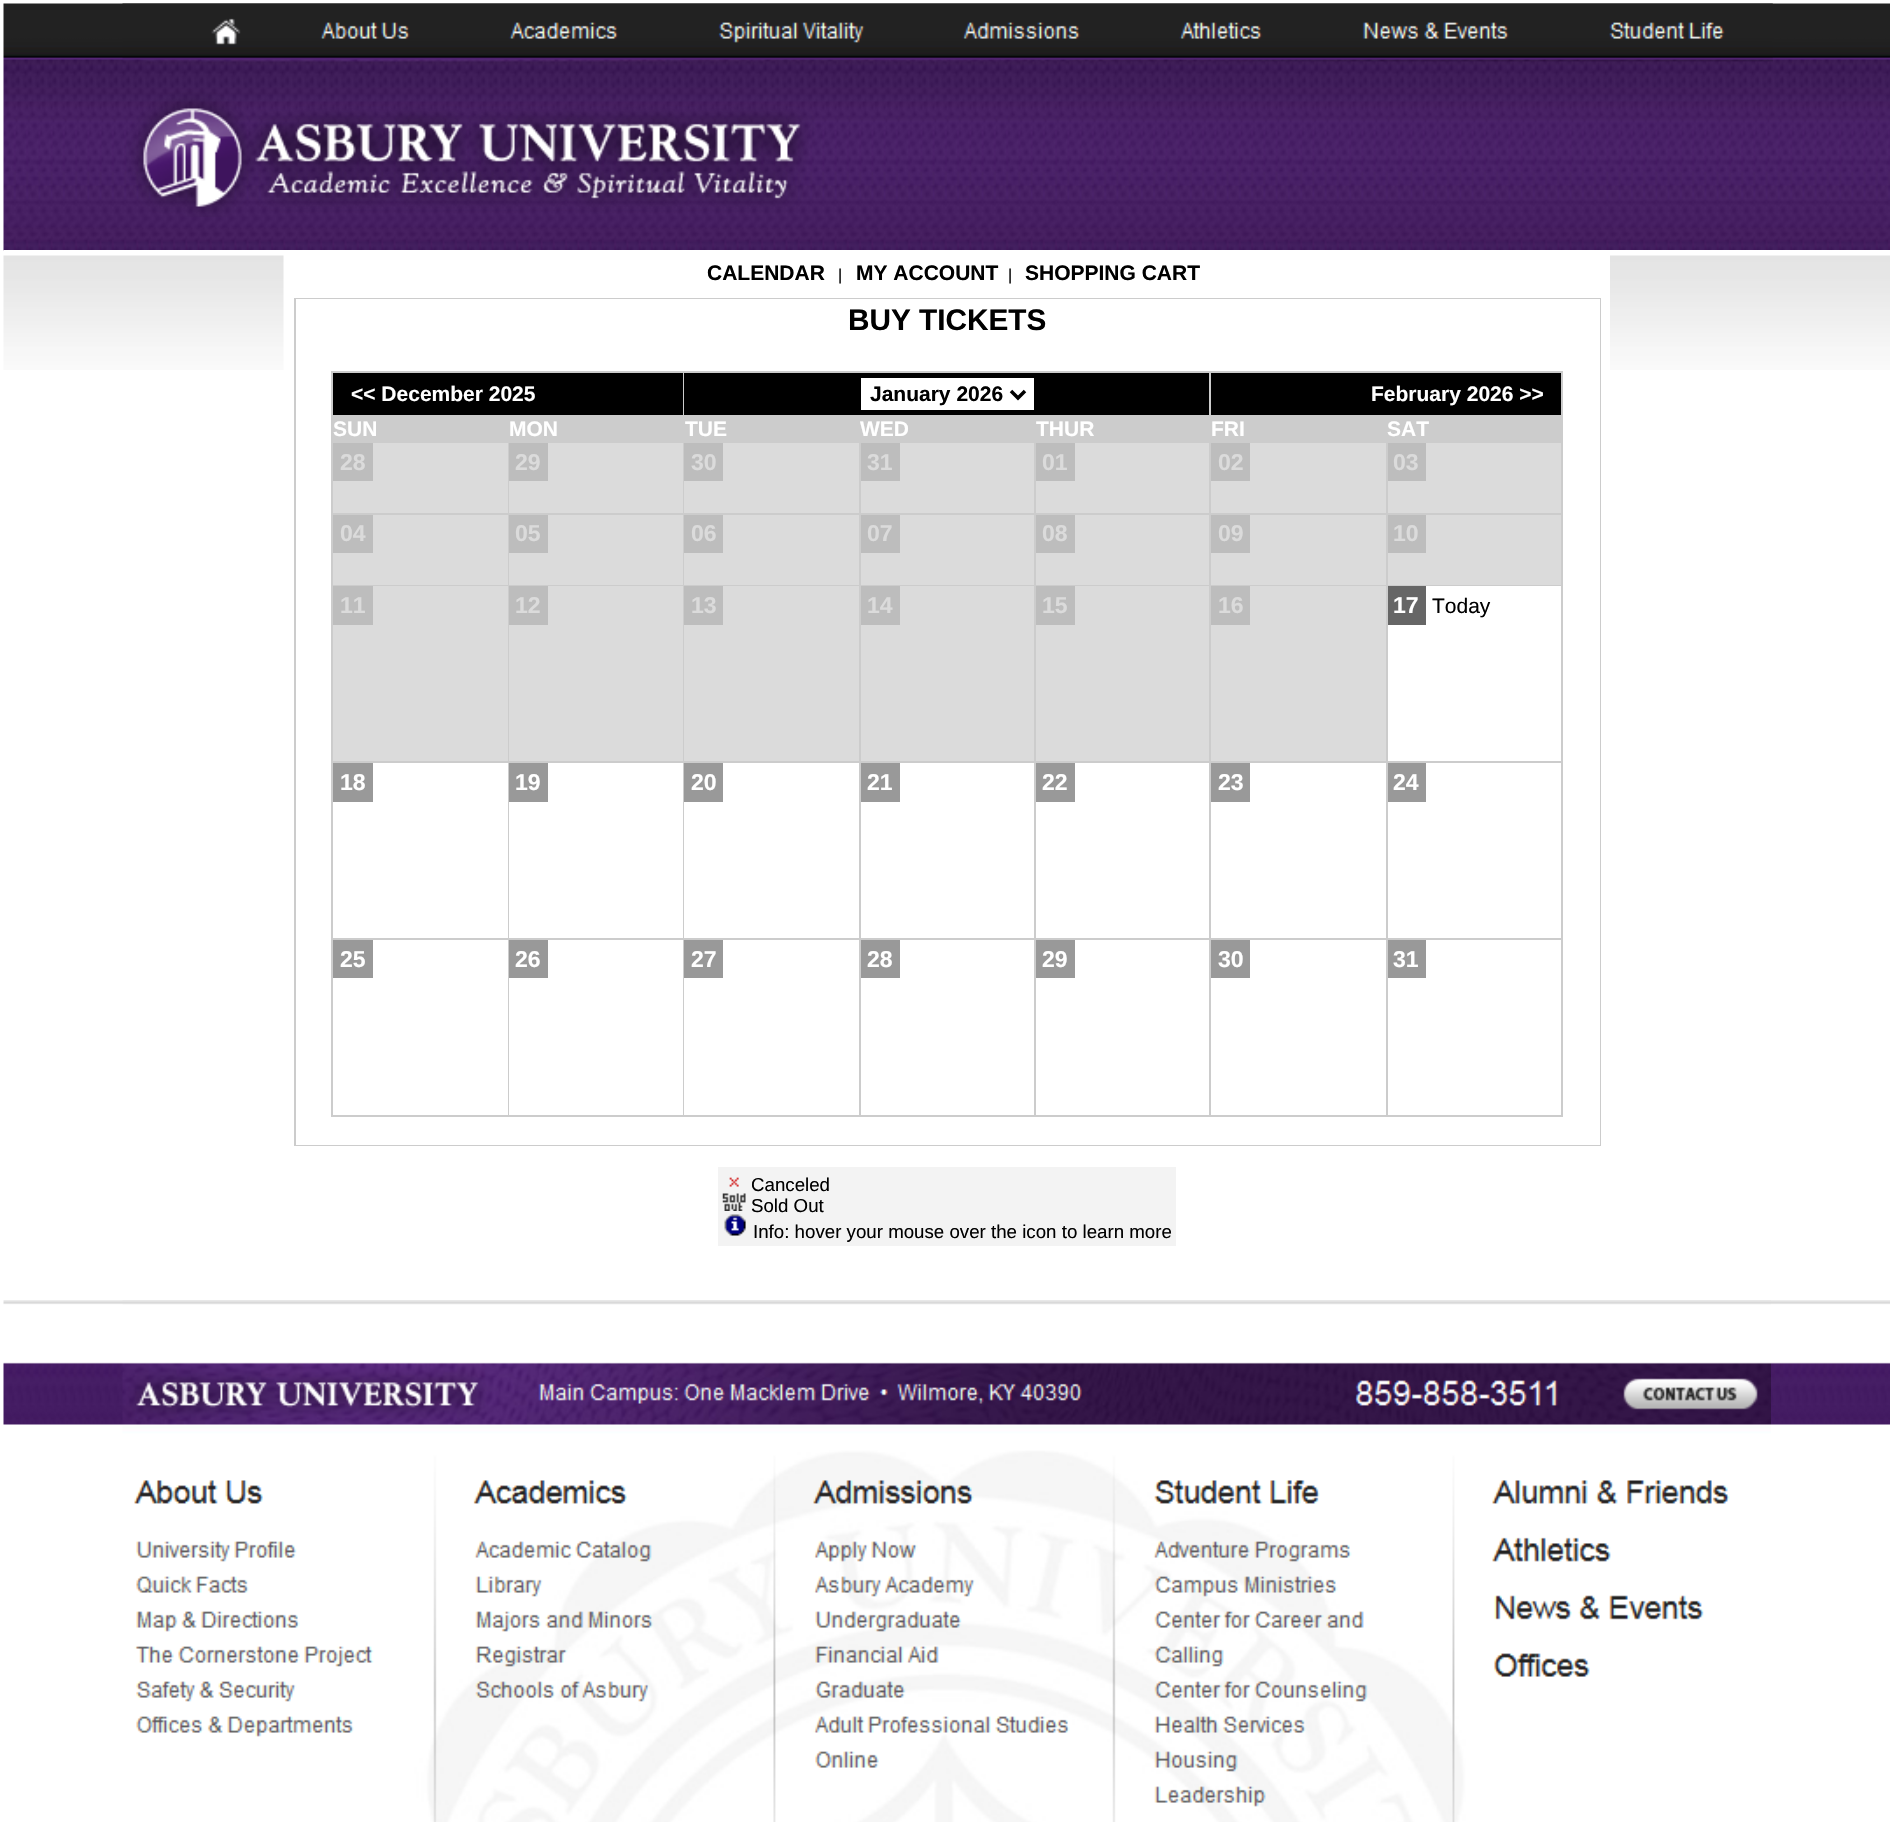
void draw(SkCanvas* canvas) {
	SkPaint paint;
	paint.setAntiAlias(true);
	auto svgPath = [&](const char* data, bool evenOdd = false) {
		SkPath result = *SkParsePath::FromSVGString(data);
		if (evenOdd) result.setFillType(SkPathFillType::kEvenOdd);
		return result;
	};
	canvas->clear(0xffffffff);
	canvas->drawImageRect(SkImages::DeferredFromEncodedData(SkData::MakeFromFileName("img1.png")), SkRect::MakeXYWH(3, 3, 1887, 248), SkSamplingOptions());
	paint.setColor(0xffffffff);
	canvas->drawRect(SkRect::MakeXYWH(4, 250, 1886, 1), paint);
	canvas->drawImageRect(SkImages::DeferredFromEncodedData(SkData::MakeFromFileName("img2.png")), SkRect::MakeXYWH(122, 3, 1651, 214), SkSamplingOptions());
	canvas->drawImageRect(SkImages::DeferredFromEncodedData(SkData::MakeFromFileName("img3.png")), SkRect::MakeXYWH(3, 255, 281, 115), SkSamplingOptions());
	SkFont f1(fontMgr->matchFamilyStyle("Liberation Sans", SkFontStyle::Bold()), 21);
	f1.setSubpixel(true);
	paint.setColor(0xff000000);
	canvas->drawString("CALENDAR", 707, 280, f1, paint);
	SkFont f2(fontMgr->matchFamilyStyle("Liberation Sans", SkFontStyle::Normal()), 16);
	f2.setSubpixel(true);
	canvas->drawString("|", 838, 280, f2, paint);
	canvas->drawString("MY ACCOUNT", 856, 280, f1, paint);
	canvas->drawString("|", 1008, 280, f2, paint);
	canvas->drawString("SHOPPING CART", 1025, 280, f1, paint);
	paint.setStroke(true);
	paint.setStrokeWidth(2);
	paint.setColor(0xffcccccc);
	canvas->drawRect(SkRect::MakeXYWH(295, 299, 1305, 846), paint);
	paint.setStroke(false);
	paint.setColor(0xffffffff);
	canvas->drawRect(SkRect::MakeXYWH(296, 299, 1304, 846), paint);
	SkFont f3(fontMgr->matchFamilyStyle("Liberation Sans", SkFontStyle::Bold()), 29.75);
	f3.setSubpixel(true);
	paint.setColor(0xff000000);
	canvas->drawString("BUY TICKETS", 848, 330, f3, paint);
	paint.setColor(0xffcccccc);
	canvas->drawRect(SkRect::MakeXYWH(331, 371, 1232, 746), paint);
	paint.setColor(0xff000000);
	canvas->drawRect(SkRect::MakeXYWH(333, 373, 350, 42), paint);
	paint.setColor(0xffffffff);
	canvas->drawString("<< December 2025", 351, 401, f1, paint);
	paint.setColor(0xff000000);
	canvas->drawRect(SkRect::MakeXYWH(684, 373, 525, 42), paint);
	paint.setColor(0xffffffff);
	canvas->drawRect(SkRect::MakeXYWH(861, 378, 173, 32), paint);
	paint.setStroke(true);
	paint.setStrokeWidth(3.5);
	paint.setColor(0xff000000);
	canvas->drawPath(svgPath("M1011 391L1018 398L1025 391"), paint);
	paint.setStroke(false);
	canvas->drawString("January 2026", 870, 401, f1, paint);
	canvas->drawRect(SkRect::MakeXYWH(1211, 373, 350, 42), paint);
	paint.setColor(0xffffffff);
	canvas->drawString("February 2026 >>", 1371, 401, f1, paint);
	canvas->drawString("SUN", 333, 436, f1, paint);
	canvas->drawString("MON", 509, 436, f1, paint);
	canvas->drawString("TUE", 685, 436, f1, paint);
	canvas->drawString("WED", 860, 436, f1, paint);
	canvas->drawString("THUR", 1036, 436, f1, paint);
	canvas->drawString("FRI", 1211, 436, f1, paint);
	canvas->drawString("SAT", 1387, 436, f1, paint);
	paint.setColor(0xffdbdbdb);
	canvas->drawRect(SkRect::MakeXYWH(333, 443, 175, 70), paint);
	paint.setColor(0xffbdbdbd);
	canvas->drawRect(SkRect::MakeXYWH(333, 443, 40, 38), paint);
	SkFont f4(fontMgr->matchFamilyStyle("Liberation Sans", SkFontStyle::Bold()), 23);
	f4.setSubpixel(true);
	paint.setColor(0xffdbdbdb);
	canvas->drawString("28", 340, 470, f4, paint);
	canvas->drawRect(SkRect::MakeXYWH(509, 443, 174, 70), paint);
	paint.setColor(0xffbdbdbd);
	canvas->drawRect(SkRect::MakeXYWH(509, 443, 39, 38), paint);
	paint.setColor(0xffdbdbdb);
	canvas->drawString("29", 515, 470, f4, paint);
	canvas->drawRect(SkRect::MakeXYWH(684, 443, 175, 70), paint);
	paint.setColor(0xffbdbdbd);
	canvas->drawRect(SkRect::MakeXYWH(684, 443, 39, 38), paint);
	paint.setColor(0xffdbdbdb);
	canvas->drawString("30", 691, 470, f4, paint);
	canvas->drawRect(SkRect::MakeXYWH(861, 443, 173, 70), paint);
	paint.setColor(0xffbdbdbd);
	canvas->drawRect(SkRect::MakeXYWH(861, 443, 39, 38), paint);
	paint.setColor(0xffdbdbdb);
	canvas->drawString("31", 867, 470, f4, paint);
	canvas->drawRect(SkRect::MakeXYWH(1036, 443, 173, 70), paint);
	paint.setColor(0xffbdbdbd);
	canvas->drawRect(SkRect::MakeXYWH(1036, 443, 39, 38), paint);
	paint.setColor(0xffdbdbdb);
	canvas->drawString("01", 1042, 470, f4, paint);
	canvas->drawRect(SkRect::MakeXYWH(1211, 443, 175, 70), paint);
	paint.setColor(0xffbdbdbd);
	canvas->drawRect(SkRect::MakeXYWH(1211, 443, 39, 38), paint);
	paint.setColor(0xffdbdbdb);
	canvas->drawString("02", 1218, 470, f4, paint);
	canvas->drawRect(SkRect::MakeXYWH(1388, 443, 173, 70), paint);
	paint.setColor(0xffbdbdbd);
	canvas->drawRect(SkRect::MakeXYWH(1388, 443, 38, 38), paint);
	paint.setColor(0xffdbdbdb);
	canvas->drawString("03", 1393, 470, f4, paint);
	canvas->drawRect(SkRect::MakeXYWH(333, 515, 175, 70), paint);
	paint.setColor(0xffbdbdbd);
	canvas->drawRect(SkRect::MakeXYWH(333, 515, 40, 38), paint);
	paint.setColor(0xffdbdbdb);
	canvas->drawString("04", 340, 541, f4, paint);
	canvas->drawRect(SkRect::MakeXYWH(509, 515, 174, 70), paint);
	paint.setColor(0xffbdbdbd);
	canvas->drawRect(SkRect::MakeXYWH(509, 515, 39, 38), paint);
	paint.setColor(0xffdbdbdb);
	canvas->drawString("05", 515, 541, f4, paint);
	canvas->drawRect(SkRect::MakeXYWH(684, 515, 175, 70), paint);
	paint.setColor(0xffbdbdbd);
	canvas->drawRect(SkRect::MakeXYWH(684, 515, 39, 38), paint);
	paint.setColor(0xffdbdbdb);
	canvas->drawString("06", 691, 541, f4, paint);
	canvas->drawRect(SkRect::MakeXYWH(861, 515, 173, 70), paint);
	paint.setColor(0xffbdbdbd);
	canvas->drawRect(SkRect::MakeXYWH(861, 515, 39, 38), paint);
	paint.setColor(0xffdbdbdb);
	canvas->drawString("07", 867, 541, f4, paint);
	canvas->drawRect(SkRect::MakeXYWH(1036, 515, 173, 70), paint);
	paint.setColor(0xffbdbdbd);
	canvas->drawRect(SkRect::MakeXYWH(1036, 515, 39, 38), paint);
	paint.setColor(0xffdbdbdb);
	canvas->drawString("08", 1042, 541, f4, paint);
	canvas->drawRect(SkRect::MakeXYWH(1211, 515, 175, 70), paint);
	paint.setColor(0xffbdbdbd);
	canvas->drawRect(SkRect::MakeXYWH(1211, 515, 39, 38), paint);
	paint.setColor(0xffdbdbdb);
	canvas->drawString("09", 1218, 541, f4, paint);
	canvas->drawRect(SkRect::MakeXYWH(1388, 515, 173, 70), paint);
	paint.setColor(0xffbdbdbd);
	canvas->drawRect(SkRect::MakeXYWH(1388, 515, 38, 38), paint);
	paint.setColor(0xffdbdbdb);
	canvas->drawString("10", 1393, 541, f4, paint);
	canvas->drawRect(SkRect::MakeXYWH(333, 586, 175, 175), paint);
	paint.setColor(0xffbdbdbd);
	canvas->drawRect(SkRect::MakeXYWH(333, 586, 40, 39), paint);
	paint.setColor(0xffdbdbdb);
	canvas->drawString("11", 340, 613, f4, paint);
	canvas->drawRect(SkRect::MakeXYWH(509, 586, 174, 175), paint);
	paint.setColor(0xffbdbdbd);
	canvas->drawRect(SkRect::MakeXYWH(509, 586, 39, 39), paint);
	paint.setColor(0xffdbdbdb);
	canvas->drawString("12", 515, 613, f4, paint);
	canvas->drawRect(SkRect::MakeXYWH(684, 586, 175, 175), paint);
	paint.setColor(0xffbdbdbd);
	canvas->drawRect(SkRect::MakeXYWH(684, 586, 39, 39), paint);
	paint.setColor(0xffdbdbdb);
	canvas->drawString("13", 691, 613, f4, paint);
	canvas->drawRect(SkRect::MakeXYWH(861, 586, 173, 175), paint);
	paint.setColor(0xffbdbdbd);
	canvas->drawRect(SkRect::MakeXYWH(861, 586, 39, 39), paint);
	paint.setColor(0xffdbdbdb);
	canvas->drawString("14", 867, 613, f4, paint);
	canvas->drawRect(SkRect::MakeXYWH(1036, 586, 173, 175), paint);
	paint.setColor(0xffbdbdbd);
	canvas->drawRect(SkRect::MakeXYWH(1036, 586, 39, 39), paint);
	paint.setColor(0xffdbdbdb);
	canvas->drawString("15", 1042, 613, f4, paint);
	canvas->drawRect(SkRect::MakeXYWH(1211, 586, 175, 175), paint);
	paint.setColor(0xffbdbdbd);
	canvas->drawRect(SkRect::MakeXYWH(1211, 586, 39, 39), paint);
	paint.setColor(0xffdbdbdb);
	canvas->drawString("16", 1218, 613, f4, paint);
	paint.setColor(0xffffffff);
	canvas->drawRect(SkRect::MakeXYWH(1388, 586, 173, 175), paint);
	paint.setColor(0xff666666);
	canvas->drawRect(SkRect::MakeXYWH(1388, 586, 38, 39), paint);
	paint.setColor(0xffffffff);
	canvas->drawString("17", 1393, 613, f4, paint);
	SkFont f5(fontMgr->matchFamilyStyle("Liberation Sans", SkFontStyle::Normal()), 21);
	f5.setSubpixel(true);
	paint.setColor(0xff000000);
	canvas->drawString("Today", 1432, 613, f5, paint);
	paint.setColor(0xffffffff);
	canvas->drawRect(SkRect::MakeXYWH(333, 763, 175, 175), paint);
	paint.setColor(0xff999999);
	canvas->drawRect(SkRect::MakeXYWH(333, 763, 40, 39), paint);
	paint.setColor(0xffffffff);
	canvas->drawString("18", 340, 790, f4, paint);
	canvas->drawRect(SkRect::MakeXYWH(509, 763, 174, 175), paint);
	paint.setColor(0xff999999);
	canvas->drawRect(SkRect::MakeXYWH(509, 763, 39, 39), paint);
	paint.setColor(0xffffffff);
	canvas->drawString("19", 515, 790, f4, paint);
	canvas->drawRect(SkRect::MakeXYWH(684, 763, 175, 175), paint);
	paint.setColor(0xff999999);
	canvas->drawRect(SkRect::MakeXYWH(684, 763, 39, 39), paint);
	paint.setColor(0xffffffff);
	canvas->drawString("20", 691, 790, f4, paint);
	canvas->drawRect(SkRect::MakeXYWH(861, 763, 173, 175), paint);
	paint.setColor(0xff999999);
	canvas->drawRect(SkRect::MakeXYWH(861, 763, 39, 39), paint);
	paint.setColor(0xffffffff);
	canvas->drawString("21", 867, 790, f4, paint);
	canvas->drawRect(SkRect::MakeXYWH(1036, 763, 173, 175), paint);
	paint.setColor(0xff999999);
	canvas->drawRect(SkRect::MakeXYWH(1036, 763, 39, 39), paint);
	paint.setColor(0xffffffff);
	canvas->drawString("22", 1042, 790, f4, paint);
	canvas->drawRect(SkRect::MakeXYWH(1211, 763, 175, 175), paint);
	paint.setColor(0xff999999);
	canvas->drawRect(SkRect::MakeXYWH(1211, 763, 39, 39), paint);
	paint.setColor(0xffffffff);
	canvas->drawString("23", 1218, 790, f4, paint);
	canvas->drawRect(SkRect::MakeXYWH(1388, 763, 173, 175), paint);
	paint.setColor(0xff999999);
	canvas->drawRect(SkRect::MakeXYWH(1388, 763, 38, 39), paint);
	paint.setColor(0xffffffff);
	canvas->drawString("24", 1393, 790, f4, paint);
	canvas->drawRect(SkRect::MakeXYWH(333, 940, 175, 175), paint);
	paint.setColor(0xff999999);
	canvas->drawRect(SkRect::MakeXYWH(333, 940, 40, 38), paint);
	paint.setColor(0xffffffff);
	canvas->drawString("25", 340, 967, f4, paint);
	canvas->drawRect(SkRect::MakeXYWH(509, 940, 174, 175), paint);
	paint.setColor(0xff999999);
	canvas->drawRect(SkRect::MakeXYWH(509, 940, 39, 38), paint);
	paint.setColor(0xffffffff);
	canvas->drawString("26", 515, 967, f4, paint);
	canvas->drawRect(SkRect::MakeXYWH(684, 940, 175, 175), paint);
	paint.setColor(0xff999999);
	canvas->drawRect(SkRect::MakeXYWH(684, 940, 39, 38), paint);
	paint.setColor(0xffffffff);
	canvas->drawString("27", 691, 967, f4, paint);
	canvas->drawRect(SkRect::MakeXYWH(861, 940, 173, 175), paint);
	paint.setColor(0xff999999);
	canvas->drawRect(SkRect::MakeXYWH(861, 940, 39, 38), paint);
	paint.setColor(0xffffffff);
	canvas->drawString("28", 867, 967, f4, paint);
	canvas->drawRect(SkRect::MakeXYWH(1036, 940, 173, 175), paint);
	paint.setColor(0xff999999);
	canvas->drawRect(SkRect::MakeXYWH(1036, 940, 39, 38), paint);
	paint.setColor(0xffffffff);
	canvas->drawString("29", 1042, 967, f4, paint);
	canvas->drawRect(SkRect::MakeXYWH(1211, 940, 175, 175), paint);
	paint.setColor(0xff999999);
	canvas->drawRect(SkRect::MakeXYWH(1211, 940, 39, 38), paint);
	paint.setColor(0xffffffff);
	canvas->drawString("30", 1218, 967, f4, paint);
	canvas->drawRect(SkRect::MakeXYWH(1388, 940, 173, 175), paint);
	paint.setColor(0xff999999);
	canvas->drawRect(SkRect::MakeXYWH(1388, 940, 38, 38), paint);
	paint.setColor(0xffffffff);
	canvas->drawString("31", 1393, 967, f4, paint);
	paint.setColor(0xfff3f3f3);
	canvas->drawRect(SkRect::MakeXYWH(718, 1167, 458, 79), paint);
	canvas->drawImageRect(SkImages::DeferredFromEncodedData(SkData::MakeFromFileName("img4.png")), SkRect::MakeXYWH(729, 1177, 10, 10), SkSamplingOptions());
	SkFont f6(fontMgr->matchFamilyStyle("Liberation Sans", SkFontStyle::Normal()), 18.7);
	f6.setSubpixel(true);
	paint.setColor(0xff000000);
	canvas->drawString("Canceled", 751, 1191, f6, paint);
	canvas->drawImageRect(SkImages::DeferredFromEncodedData(SkData::MakeFromFileName("img5.png")), SkRect::MakeXYWH(722, 1193, 24, 18), SkSamplingOptions());
	canvas->drawString("Sold Out", 751, 1212, f6, paint);
	canvas->drawImageRect(SkImages::DeferredFromEncodedData(SkData::MakeFromFileName("img6.png")), SkRect::MakeXYWH(724, 1214, 22, 22), SkSamplingOptions());
	canvas->drawString("Info: hover your mouse over the icon to learn more", 753, 1238, f6, paint);
	canvas->drawImageRect(SkImages::DeferredFromEncodedData(SkData::MakeFromFileName("img7.png")), SkRect::MakeXYWH(1610, 255, 280, 115), SkSamplingOptions());
	canvas->drawImageRect(SkImages::DeferredFromEncodedData(SkData::MakeFromFileName("img8.png")), SkRect::MakeXYWH(3, 1300, 1887, 125), SkSamplingOptions());
	canvas->drawImageRect(SkImages::DeferredFromEncodedData(SkData::MakeFromFileName("img9.png")), SkRect::MakeXYWH(122, 1300, 1649, 522), SkSamplingOptions());
}
